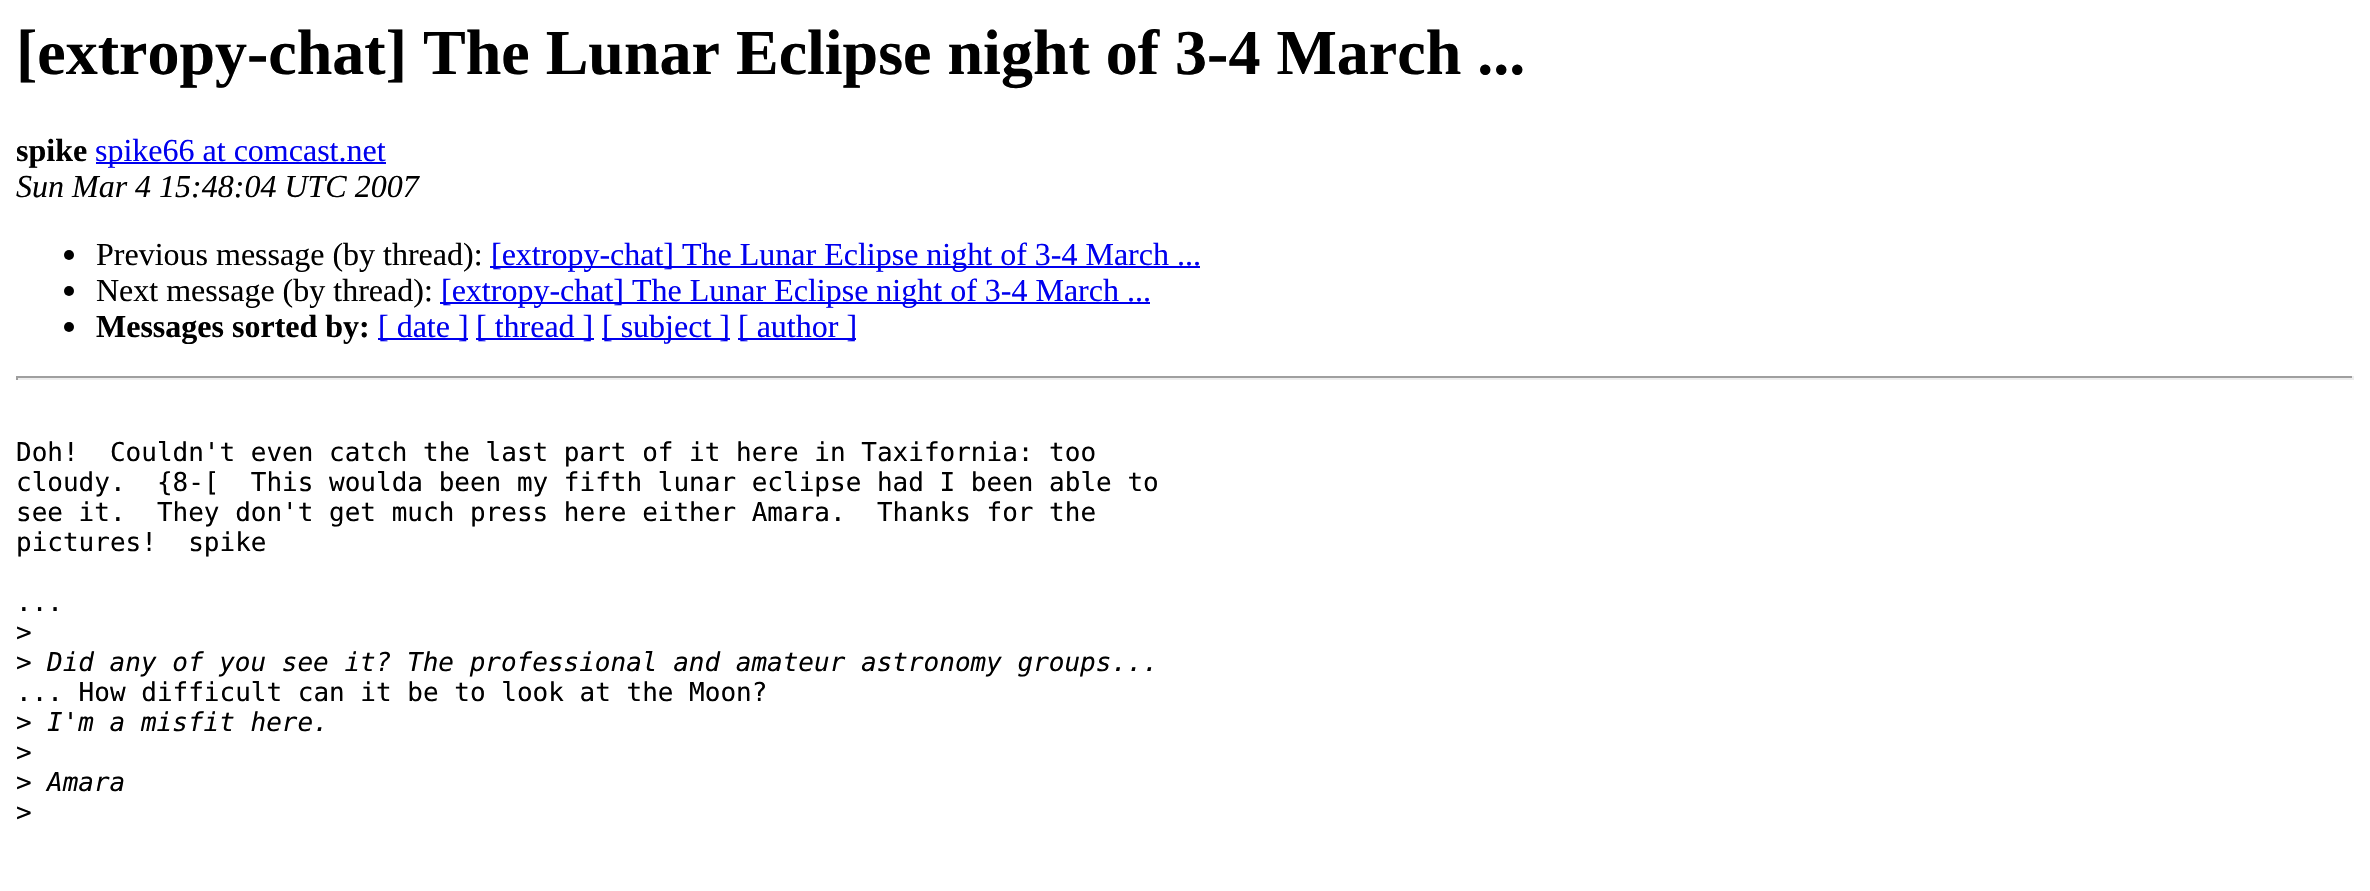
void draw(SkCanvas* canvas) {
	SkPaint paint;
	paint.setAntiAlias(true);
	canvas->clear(0xffffffff);
	SkFont f1(fontMgr->matchFamilyStyle("Liberation Serif", SkFontStyle::Bold()), 64);
	f1.setSubpixel(true);
	paint.setColor(0xff000000);
	canvas->drawString("[extropy-chat] The Lunar Eclipse night of 3-4 March ...", 16, 74, f1, paint);
	SkFont f2(fontMgr->matchFamilyStyle("Liberation Serif", SkFontStyle::Bold()), 32);
	f2.setSubpixel(true);
	canvas->drawString("spike", 16, 161, f2, paint);
	paint.setColor(0xff0000ee);
	canvas->drawRect(SkRect::MakeXYWH(96, 162, 290, 2), paint);
	SkFont f3(fontMgr->matchFamilyStyle("Liberation Serif", SkFontStyle::Normal()), 32);
	f3.setSubpixel(true);
	canvas->drawString("spike66 at comcast.net", 95, 161, f3, paint);
	SkFont f4(fontMgr->matchFamilyStyle("Liberation Serif", SkFontStyle::Italic()), 32);
	f4.setSubpixel(true);
	paint.setColor(0xff000000);
	canvas->drawString("Sun Mar 4 15:48:04 UTC 2007", 16, 197, f4, paint);
	canvas->drawCircle(69, 255, 5, paint);
	canvas->drawString("Previous message (by thread):", 96, 265, f3, paint);
	paint.setColor(0xff0000ee);
	canvas->drawRect(SkRect::MakeXYWH(490, 266, 710, 2), paint);
	canvas->drawString("[extropy-chat] The Lunar Eclipse night of 3-4 March ...", 491, 265, f3, paint);
	paint.setColor(0xff000000);
	canvas->drawCircle(69, 291, 5, paint);
	canvas->drawString("Next message (by thread):", 96, 301, f3, paint);
	paint.setColor(0xff0000ee);
	canvas->drawRect(SkRect::MakeXYWH(440, 302, 710, 2), paint);
	canvas->drawString("[extropy-chat] The Lunar Eclipse night of 3-4 March ...", 441, 301, f3, paint);
	paint.setColor(0xff000000);
	canvas->drawCircle(69, 327, 5, paint);
	canvas->drawString("Messages sorted by:", 96, 337, f2, paint);
	paint.setColor(0xff0000ee);
	canvas->drawRect(SkRect::MakeXYWH(378, 338, 90, 2), paint);
	canvas->drawString("[ date ]", 378, 337, f3, paint);
	canvas->drawRect(SkRect::MakeXYWH(476, 338, 118, 2), paint);
	canvas->drawString("[ thread ]", 476, 337, f3, paint);
	canvas->drawRect(SkRect::MakeXYWH(602, 338, 128, 2), paint);
	canvas->drawString("[ subject ]", 602, 337, f3, paint);
	canvas->drawRect(SkRect::MakeXYWH(738, 338, 118, 2), paint);
	canvas->drawString("[ author ]", 738, 337, f3, paint);
	paint.setColor(0xff9f9f9f);
	canvas->drawRect(SkRect::MakeXYWH(16, 376, 2338, 2), paint);
	paint.setColor(0xffeeeeee);
	canvas->drawRect(SkRect::MakeXYWH(2352, 376, 2, 4), paint);
	canvas->drawRect(SkRect::MakeXYWH(16, 378, 2338, 2), paint);
	paint.setColor(0xff9f9f9f);
	canvas->drawRect(SkRect::MakeXYWH(16, 376, 2, 4), paint);
	SkFont f5(fontMgr->matchFamilyStyle("DejaVu Sans Mono", SkFontStyle::Normal()), 26);
	f5.setSubpixel(true);
	paint.setColor(0xff000000);
	canvas->drawString("Doh!  Couldn't even catch the last part of it here in Taxifornia: too", 16, 461, f5, paint);
	canvas->drawString("cloudy.  {8-[  This woulda been my fifth lunar eclipse had I been able to", 16, 491, f5, paint);
	canvas->drawString("see it.  They don't get much press here either Amara.  Thanks for the", 16, 521, f5, paint);
	canvas->drawString("pictures!  spike", 16, 551, f5, paint);
	canvas->drawString("...", 16, 611, f5, paint);
	canvas->drawString(">", 16, 641, f5, paint);
	canvas->drawString(">", 16, 671, f5, paint);
	SkFont f6(fontMgr->matchFamilyStyle("DejaVu Sans Mono", SkFontStyle::Italic()), 26);
	f6.setSubpixel(true);
	canvas->drawString("Did any of you see it? The professional and amateur astronomy groups...", 47, 671, f6, paint);
	canvas->drawString("... How difficult can it be to look at the Moon?", 16, 701, f5, paint);
	canvas->drawString(">", 16, 731, f5, paint);
	canvas->drawString("I'm a misfit here.", 47, 731, f6, paint);
	canvas->drawString(">", 16, 761, f5, paint);
	canvas->drawString(">", 16, 791, f5, paint);
	canvas->drawString("Amara", 47, 791, f6, paint);
	canvas->drawString(">", 16, 821, f5, paint);
}
